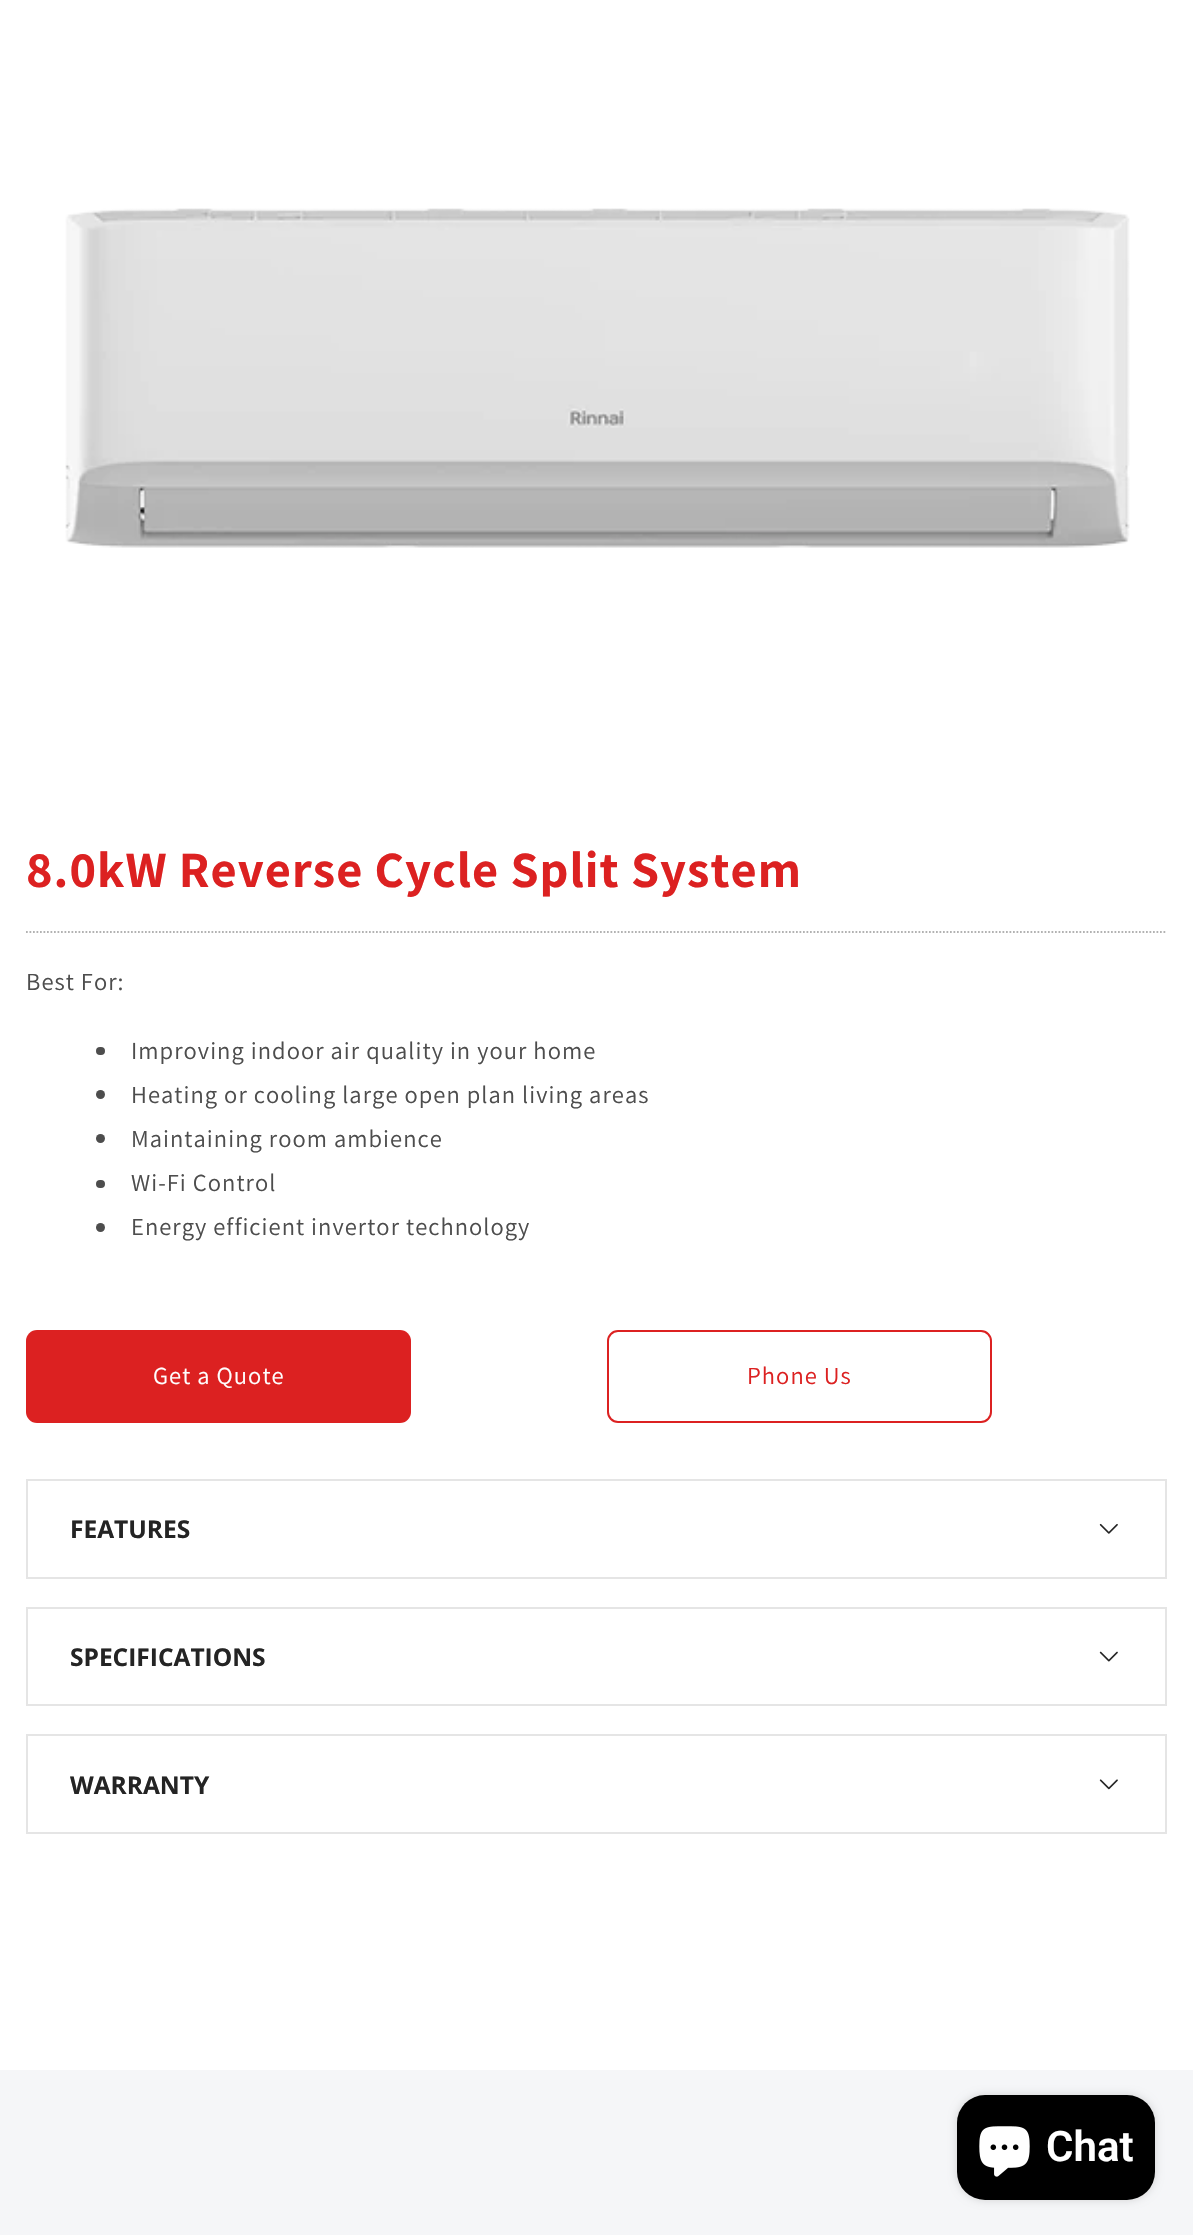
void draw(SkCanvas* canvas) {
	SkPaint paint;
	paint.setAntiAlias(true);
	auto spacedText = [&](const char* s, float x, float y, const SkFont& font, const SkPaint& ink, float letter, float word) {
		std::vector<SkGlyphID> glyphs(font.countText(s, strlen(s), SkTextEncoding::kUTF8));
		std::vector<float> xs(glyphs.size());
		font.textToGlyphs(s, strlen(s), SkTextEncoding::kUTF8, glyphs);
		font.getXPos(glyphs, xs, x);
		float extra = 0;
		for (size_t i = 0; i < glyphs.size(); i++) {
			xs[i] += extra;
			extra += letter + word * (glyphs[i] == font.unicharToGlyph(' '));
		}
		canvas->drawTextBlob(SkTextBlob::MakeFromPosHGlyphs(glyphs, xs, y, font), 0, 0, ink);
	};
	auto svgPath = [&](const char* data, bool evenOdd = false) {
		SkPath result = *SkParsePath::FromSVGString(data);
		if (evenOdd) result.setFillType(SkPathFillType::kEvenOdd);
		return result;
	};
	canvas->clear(0xffffffff);
	canvas->drawImageRect(SkImages::DeferredFromEncodedData(SkData::MakeFromFileName("img1.png")), SkRect::MakeXYWH(65, 208, 1065, 340), SkSamplingOptions());
	SkFont f1(fontMgr->matchFamilyStyle("Assistant", SkFontStyle::Bold()), 50.75);
	f1.setSubpixel(true);
	paint.setColor(0xffdc2121);
	spacedText("8.0kW Reverse Cycle Split System", 26, 887, f1, paint, 1.05, 0);
	paint.setStroke(true);
	paint.setStrokeWidth(1.8);
	paint.setColor(0xffb2b2b2);
	paint.setPathEffect(SkDashPathEffect::Make({{1.75f, 1.75f}}, 0));
	canvas->drawPath(svgPath("M26 932H1167"), paint);
	paint.setPathEffect(nullptr);
	SkFont f2(fontMgr->matchFamilyStyle("Assistant", SkFontStyle(200, SkFontStyle::kNormal_Width, SkFontStyle::kUpright_Slant)), 24.5);
	f2.setSubpixel(true);
	paint.setStroke(false);
	paint.setColor(0xff4d4d4d);
	spacedText("Best For:", 26, 990, f2, paint, 1.05, 0);
	canvas->drawRoundRect(SkRect::MakeXYWH(96, 1047, 9, 8), 4, 4, paint);
	spacedText("Improving indoor air quality in your home", 131, 1059, f2, paint, 1.05, 0);
	canvas->drawCircle(100.5, 1094.5, 4.5, paint);
	spacedText("Heating or cooling large open plan living areas", 131, 1103, f2, paint, 1.05, 0);
	canvas->drawCircle(100.5, 1138.5, 4.5, paint);
	spacedText("Maintaining room ambience", 131, 1147, f2, paint, 1.05, 0);
	canvas->drawRoundRect(SkRect::MakeXYWH(96, 1180, 9, 8), 4, 4, paint);
	spacedText("Wi-Fi Control", 131, 1191, f2, paint, 1.05, 0);
	canvas->drawCircle(100.5, 1227.5, 4.5, paint);
	spacedText("Energy efficient invertor technology", 131, 1235, f2, paint, 1.05, 0);
	paint.setColor(0xffdc2121);
	canvas->drawRoundRect(SkRect::MakeXYWH(26, 1330, 385, 93), 11, 11, paint);
	paint.setColor(0xffffffff);
	spacedText("Get a Quote", 153, 1384, f2, paint, 1.05, 0);
	paint.setStroke(true);
	paint.setStrokeWidth(2);
	paint.setColor(0xffdc2121);
	canvas->drawRoundRect(SkRect::MakeXYWH(608, 1331, 383, 91), 10, 10, paint);
	paint.setStroke(false);
	spacedText("Phone Us", 747, 1384, f2, paint, 1.05, 0);
	paint.setStroke(true);
	paint.setColor(0xffe5e5e5);
	canvas->drawRect(SkRect::MakeXYWH(27, 1480, 1139, 98), paint);
	SkFont f3(fontMgr->matchFamilyStyle("Open Sans", SkFontStyle::Bold()), 24.5);
	f3.setSubpixel(true);
	paint.setStroke(false);
	paint.setColor(0xff242424);
	canvas->drawString("FEATURES", 70, 1538, f3, paint);
	canvas->drawImageRect(SkImages::DeferredFromEncodedData(SkData::MakeFromFileName("img2.png")), SkRect::MakeXYWH(1099, 1523, 19, 11), SkSamplingOptions());
	paint.setStroke(true);
	paint.setColor(0xffe5e5e5);
	canvas->drawRect(SkRect::MakeXYWH(27, 1608, 1139, 97), paint);
	paint.setStroke(false);
	paint.setColor(0xff242424);
	canvas->drawString("SPECIFICATIONS", 70, 1666, f3, paint);
	canvas->drawImageRect(SkImages::DeferredFromEncodedData(SkData::MakeFromFileName("img3.png")), SkRect::MakeXYWH(1099, 1651, 19, 11), SkSamplingOptions());
	paint.setStroke(true);
	paint.setColor(0xffe5e5e5);
	canvas->drawRect(SkRect::MakeXYWH(27, 1735, 1139, 98), paint);
	paint.setStroke(false);
	paint.setColor(0xff242424);
	canvas->drawString("WARRANTY", 70, 1794, f3, paint);
	canvas->drawImageRect(SkImages::DeferredFromEncodedData(SkData::MakeFromFileName("img4.png")), SkRect::MakeXYWH(1099, 1779, 19, 11), SkSamplingOptions());
	paint.setColor(0xfff5f6f8);
	canvas->drawRect(SkRect::MakeXYWH(0, 2070, 1193, 165), paint);
	paint.setColor(0x26000000);
	paint.setMaskFilter(SkMaskFilter::MakeBlur(kNormal_SkBlurStyle, 4.5));
	canvas->drawRoundRect(SkRect::MakeXYWH(957, 2095, 198, 105), 28, 28, paint);
	paint.setMaskFilter(nullptr);
	paint.setColor(0xff000000);
	canvas->drawRoundRect(SkRect::MakeXYWH(957, 2095, 198, 105), 28, 28, paint);
	canvas->drawImageRect(SkImages::DeferredFromEncodedData(SkData::MakeFromFileName("img5.png")), SkRect::MakeXYWH(979, 2126, 51, 51), SkSamplingOptions());
	SkFont f4(fontMgr->matchFamilyStyle("Roboto", SkFontStyle(600, SkFontStyle::kNormal_Width, SkFontStyle::kUpright_Slant)), 42);
	f4.setSubpixel(true);
	paint.setColor(0xffffffff);
	canvas->drawString("Chat", 1046, 2161, f4, paint);
}
